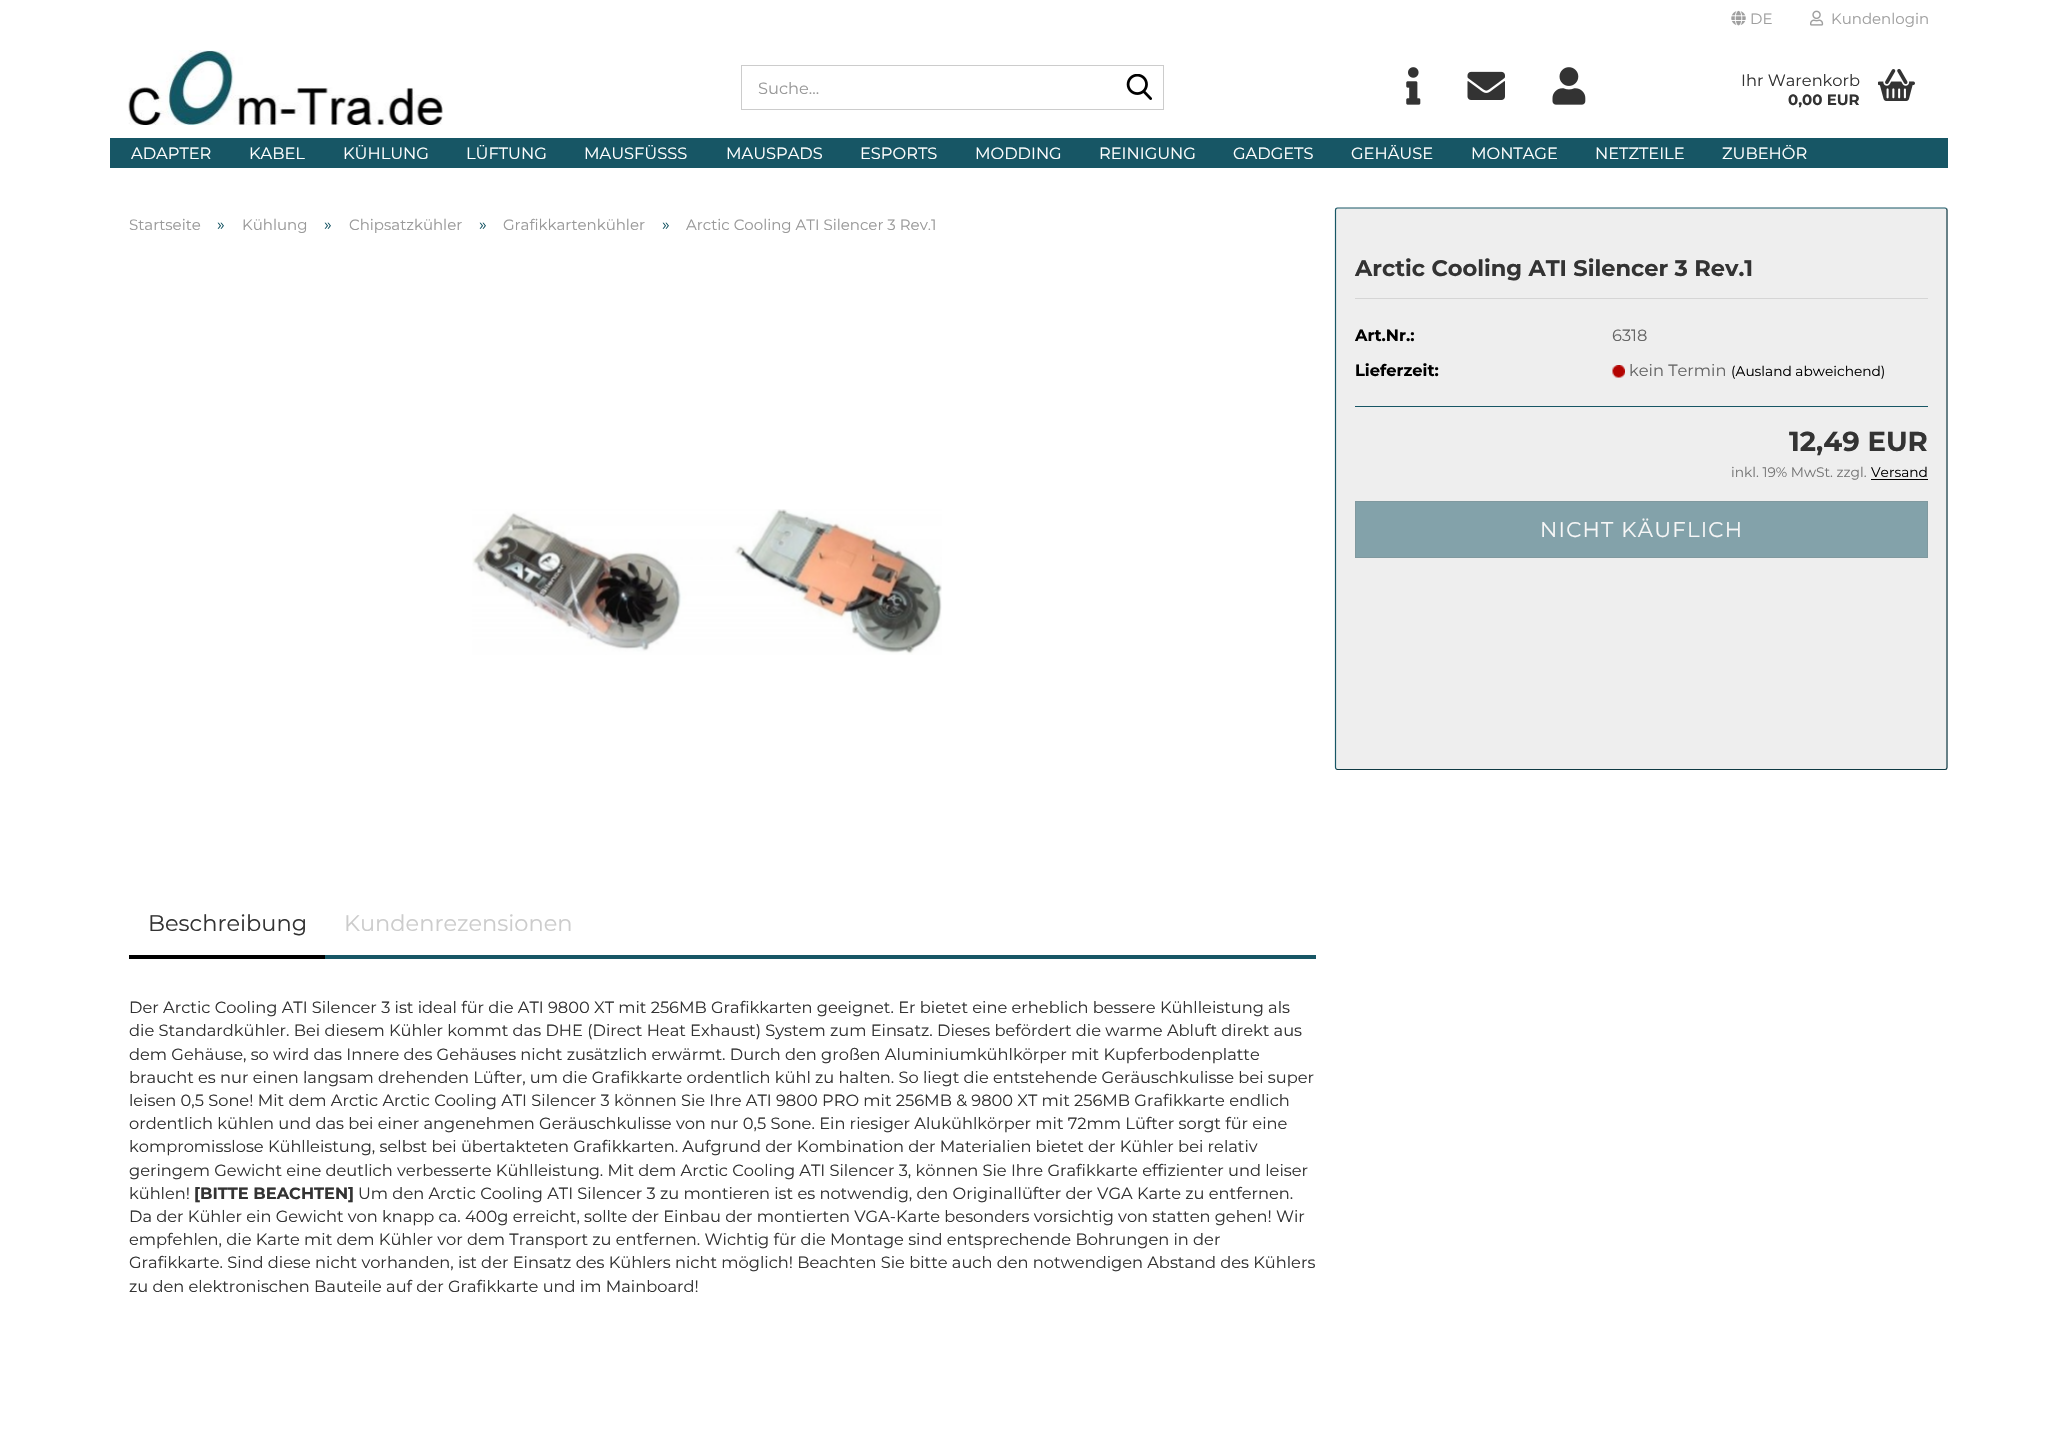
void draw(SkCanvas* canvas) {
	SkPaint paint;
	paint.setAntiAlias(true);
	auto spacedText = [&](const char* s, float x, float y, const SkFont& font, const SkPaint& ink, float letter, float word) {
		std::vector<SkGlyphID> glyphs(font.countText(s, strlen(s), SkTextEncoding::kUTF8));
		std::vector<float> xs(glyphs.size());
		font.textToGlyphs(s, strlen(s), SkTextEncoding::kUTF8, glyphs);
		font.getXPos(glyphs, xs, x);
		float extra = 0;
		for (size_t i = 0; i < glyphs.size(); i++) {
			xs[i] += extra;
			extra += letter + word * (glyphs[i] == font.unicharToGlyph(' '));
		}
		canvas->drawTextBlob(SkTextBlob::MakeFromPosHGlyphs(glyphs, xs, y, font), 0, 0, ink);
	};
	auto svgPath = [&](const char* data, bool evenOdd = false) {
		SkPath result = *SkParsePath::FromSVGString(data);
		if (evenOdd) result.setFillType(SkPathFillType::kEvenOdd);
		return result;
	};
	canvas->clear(0xffffffff);
	canvas->drawImageRect(SkImages::DeferredFromEncodedData(SkData::MakeFromFileName("img1.png")), SkRect::MakeXYWH(1731, 10, 15, 16), SkSamplingOptions());
	SkFont f1(fontMgr->matchFamilyStyle("Montserrat", SkFontStyle(100, SkFontStyle::kNormal_Width, SkFontStyle::kUpright_Slant)), 15);
	f1.setSubpixel(true);
	paint.setColor(0xff9f9f9f);
	canvas->drawString("DE", 1750, 24, f1, paint);
	canvas->drawImageRect(SkImages::DeferredFromEncodedData(SkData::MakeFromFileName("img2.png")), SkRect::MakeXYWH(1810, 10, 14, 16), SkSamplingOptions());
	canvas->drawString("Kundenlogin", 1831, 24, f1, paint);
	canvas->drawImageRect(SkImages::DeferredFromEncodedData(SkData::MakeFromFileName("img3.png")), SkRect::MakeXYWH(128, 50, 315, 75), SkSamplingOptions());
	paint.setStroke(true);
	paint.setStrokeWidth(1);
	paint.setColor(0xffcccccc);
	canvas->drawRect(SkRect::MakeXYWH(741.5, 65.5, 422, 44), paint);
	SkFont f2(fontMgr->matchFamilyStyle("Montserrat", SkFontStyle(100, SkFontStyle::kNormal_Width, SkFontStyle::kUpright_Slant)), 16.25);
	f2.setSubpixel(true);
	paint.setStroke(false);
	paint.setColor(0xff999999);
	canvas->drawString("Suche...", 758, 94, f2, paint);
	canvas->drawImageRect(SkImages::DeferredFromEncodedData(SkData::MakeFromFileName("img4.png")), SkRect::MakeXYWH(1126, 74, 26, 26), SkSamplingOptions());
	canvas->drawImageRect(SkImages::DeferredFromEncodedData(SkData::MakeFromFileName("img5.png")), SkRect::MakeXYWH(1406, 67, 15, 38), SkSamplingOptions());
	canvas->drawImageRect(SkImages::DeferredFromEncodedData(SkData::MakeFromFileName("img6.png")), SkRect::MakeXYWH(1467, 71, 38, 29), SkSamplingOptions());
	canvas->drawImageRect(SkImages::DeferredFromEncodedData(SkData::MakeFromFileName("img7.png")), SkRect::MakeXYWH(1552, 67, 34, 38), SkSamplingOptions());
	paint.setColor(0xff333333);
	canvas->drawString("Ihr Warenkorb", 1741, 86, f2, paint);
	SkFont f3(fontMgr->matchFamilyStyle("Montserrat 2", SkFontStyle(100, SkFontStyle::kNormal_Width, SkFontStyle::kUpright_Slant)), 15);
	f3.setSubpixel(true);
	canvas->drawString("0,00 EUR", 1788, 105, f3, paint);
	canvas->drawImageRect(SkImages::DeferredFromEncodedData(SkData::MakeFromFileName("img8.png")), SkRect::MakeXYWH(1878, 69, 37, 32), SkSamplingOptions());
	paint.setColor(0xff175665);
	canvas->drawRect(SkRect::MakeXYWH(110, 138, 1838, 30), paint);
	paint.setColor(0xffffffff);
	canvas->drawString("ADAPTER", 131, 159, f2, paint);
	canvas->drawString("KABEL", 249, 159, f2, paint);
	canvas->drawString("KÜHLUNG", 343, 159, f2, paint);
	canvas->drawString("LÜFTUNG", 466, 159, f2, paint);
	canvas->drawString("MAUSFÜSSS", 584, 159, f2, paint);
	canvas->drawString("MAUSPADS", 726, 159, f2, paint);
	canvas->drawString("ESPORTS", 860, 159, f2, paint);
	canvas->drawString("MODDING", 975, 159, f2, paint);
	canvas->drawString("REINIGUNG", 1099, 159, f2, paint);
	canvas->drawString("GADGETS", 1233, 159, f2, paint);
	canvas->drawString("GEHÄUSE", 1351, 159, f2, paint);
	canvas->drawString("MONTAGE", 1471, 159, f2, paint);
	canvas->drawString("NETZTEILE", 1595, 159, f2, paint);
	canvas->drawString("ZUBEHÖR", 1722, 159, f2, paint);
	paint.setColor(0xff999999);
	canvas->drawString("Startseite", 129, 230, f1, paint);
	paint.setColor(0xff175665);
	canvas->drawString("»", 217, 230, f2, paint);
	paint.setColor(0xff999999);
	canvas->drawString("Kühlung", 242, 230, f1, paint);
	paint.setColor(0xff175665);
	canvas->drawString("»", 324, 230, f2, paint);
	paint.setColor(0xff999999);
	canvas->drawString("Chipsatzkühler", 349, 230, f1, paint);
	paint.setColor(0xff175665);
	canvas->drawString("»", 479, 230, f2, paint);
	paint.setColor(0xff999999);
	canvas->drawString("Grafikkartenkühler", 503, 230, f1, paint);
	paint.setColor(0xff175665);
	canvas->drawString("»", 662, 230, f2, paint);
	paint.setColor(0xff999999);
	canvas->drawString("Arctic Cooling ATI Silencer 3 Rev.1", 686, 230, f1, paint);
	paint.setColor(0xffeeeeee);
	canvas->drawRoundRect(SkRect::MakeXYWH(1335, 208, 613, 562), 2.5, 2.5, paint);
	paint.setStroke(true);
	paint.setStrokeWidth(1.2);
	paint.setColor(0xff0f3943);
	canvas->drawPath(svgPath("M1946.5 208.5L1947 210V767.5L1946.5 769L1945 769.5H1337.5L1336 769"), paint);
	paint.setColor(0xff175665);
	canvas->drawPath(svgPath("M1336 769L1335.5 767.5V210L1336 208.5L1337.5 208H1945L1946.5 208.5"), paint);
	paint.setStroke(false);
	paint.setColor(0xffd5d5d5);
	canvas->drawRect(SkRect::MakeXYWH(1355, 298, 573, 1), paint);
	SkFont f4(fontMgr->matchFamilyStyle("Montserrat 2", SkFontStyle(100, SkFontStyle::kNormal_Width, SkFontStyle::kUpright_Slant)), 22.5);
	f4.setSubpixel(true);
	paint.setColor(0xff333333);
	canvas->drawString("Arctic Cooling ATI Silencer 3 Rev.1", 1355, 276, f4, paint);
	paint.setColor(0xff175665);
	canvas->drawRect(SkRect::MakeXYWH(1355, 406, 573, 1), paint);
	SkFont f5(fontMgr->matchFamilyStyle("Montserrat 2", SkFontStyle(100, SkFontStyle::kNormal_Width, SkFontStyle::kUpright_Slant)), 16.25);
	f5.setSubpixel(true);
	paint.setColor(0xff000000);
	canvas->drawString("Art.Nr.:", 1355, 341, f5, paint);
	paint.setColor(0xff666666);
	canvas->drawString("6318", 1612, 341, f2, paint);
	paint.setColor(0xff000000);
	canvas->drawString("Lieferzeit:", 1355, 376, f5, paint);
	canvas->drawImageRect(SkImages::DeferredFromEncodedData(SkData::MakeFromFileName("img9.png")), SkRect::MakeXYWH(1612, 365, 13, 13), SkSamplingOptions());
	paint.setColor(0xff666666);
	canvas->drawString("kein Termin", 1629, 376, f2, paint);
	SkFont f6(fontMgr->matchFamilyStyle("Montserrat", SkFontStyle(100, SkFontStyle::kNormal_Width, SkFontStyle::kUpright_Slant)), 13.75);
	f6.setSubpixel(true);
	paint.setColor(0xff000000);
	canvas->drawString("(Ausland abweichend)", 1731, 376, f6, paint);
	SkFont f7(fontMgr->matchFamilyStyle("Montserrat 2", SkFontStyle(100, SkFontStyle::kNormal_Width, SkFontStyle::kUpright_Slant)), 27.5);
	f7.setSubpixel(true);
	paint.setColor(0xff333333);
	canvas->drawString("12,49 EUR", 1789, 451, f7, paint);
	paint.setColor(0xff777777);
	canvas->drawString("inkl. 19% MwSt. zzgl.", 1731, 477, f6, paint);
	paint.setColor(0xff000000);
	canvas->drawString("Versand", 1871, 477, f6, paint);
	canvas->drawRect(SkRect::MakeXYWH(1871, 479, 57, 1), paint);
	paint.setColor(0xff83a2aa);
	canvas->drawRect(SkRect::MakeXYWH(1355.5, 501.5, 572, 56), paint);
	paint.setStroke(true);
	paint.setStrokeWidth(1);
	paint.setColor(0xff80999f);
	canvas->drawRect(SkRect::MakeXYWH(1355.5, 501.5, 572, 56), paint);
	SkFont f8(fontMgr->matchFamilyStyle("Montserrat", SkFontStyle(100, SkFontStyle::kNormal_Width, SkFontStyle::kUpright_Slant)), 21.25);
	f8.setSubpixel(true);
	paint.setStroke(false);
	paint.setColor(0xfff7f7f7);
	spacedText("NICHT KÄUFLICH", 1540, 537, f8, paint, 1.25, 0);
	canvas->drawImageRect(SkImages::DeferredFromEncodedData(SkData::MakeFromFileName("img10.png")), SkRect::MakeXYWH(472, 509, 470, 146), SkSamplingOptions());
	paint.setColor(0xff175665);
	canvas->drawRect(SkRect::MakeXYWH(325, 955, 991, 4), paint);
	paint.setColor(0xff000000);
	canvas->drawRect(SkRect::MakeXYWH(129, 955, 196, 4), paint);
	SkFont f9(fontMgr->matchFamilyStyle("Montserrat", SkFontStyle(100, SkFontStyle::kNormal_Width, SkFontStyle::kUpright_Slant)), 22.5);
	f9.setSubpixel(true);
	paint.setColor(0xff333333);
	canvas->drawString("Beschreibung", 148, 931, f9, paint);
	paint.setColor(0xffcccccc);
	canvas->drawString("Kundenrezensionen", 344, 931, f9, paint);
	paint.setColor(0xff333333);
	canvas->drawString("Der Arctic Cooling ATI Silencer 3 ist ideal für die ATI 9800 XT mit 256MB Grafikkarten geeignet. Er bietet eine erheblich bessere Kühlleistung als", 129, 1013, f2, paint);
	canvas->drawString("die Standardkühler. Bei diesem Kühler kommt das DHE (Direct Heat Exhaust) System zum Einsatz. Dieses befördert die warme Abluft direkt aus", 129, 1036, f2, paint);
	canvas->drawString("dem Gehäuse, so wird das Innere des Gehäuses nicht zusätzlich erwärmt. Durch den großen Aluminiumkühlkörper mit Kupferbodenplatte", 129, 1060, f2, paint);
	canvas->drawString("braucht es nur einen langsam drehenden Lüfter, um die Grafikkarte ordentlich kühl zu halten. So liegt die entstehende Geräuschkulisse bei super", 129, 1083, f2, paint);
	canvas->drawString("leisen 0,5 Sone! Mit dem Arctic Arctic Cooling ATI Silencer 3 können Sie Ihre ATI 9800 PRO mit 256MB & 9800 XT mit 256MB Grafikkarte endlich", 129, 1106, f2, paint);
	canvas->drawString("ordentlich kühlen und das bei einer angenehmen Geräuschkulisse von nur 0,5 Sone. Ein riesiger Alukühlkörper mit 72mm Lüfter sorgt für eine", 129, 1129, f2, paint);
	canvas->drawString("kompromisslose Kühlleistung, selbst bei übertakteten Grafikkarten. Aufgrund der Kombination der Materialien bietet der Kühler bei relativ", 129, 1152, f2, paint);
	canvas->drawString("geringem Gewicht eine deutlich verbesserte Kühlleistung. Mit dem Arctic Cooling ATI Silencer 3, können Sie Ihre Grafikkarte effizienter und leiser", 129, 1176, f2, paint);
	canvas->drawString("kühlen!", 129, 1199, f2, paint);
	canvas->drawString("[BITTE BEACHTEN]", 194, 1199, f5, paint);
	canvas->drawString("Um den Arctic Cooling ATI Silencer 3 zu montieren ist es notwendig, den Originallüfter der VGA Karte zu entfernen.", 358, 1199, f2, paint);
	canvas->drawString("Da der Kühler ein Gewicht von knapp ca. 400g erreicht, sollte der Einbau der montierten VGA-Karte besonders vorsichtig von statten gehen! Wir", 129, 1222, f2, paint);
	canvas->drawString("empfehlen, die Karte mit dem Kühler vor dem Transport zu entfernen. Wichtig für die Montage sind entsprechende Bohrungen in der", 129, 1245, f2, paint);
	canvas->drawString("Grafikkarte. Sind diese nicht vorhanden, ist der Einsatz des Kühlers nicht möglich! Beachten Sie bitte auch den notwendigen Abstand des Kühlers", 129, 1268, f2, paint);
	canvas->drawString("zu den elektronischen Bauteile auf der Grafikkarte und im Mainboard!", 129, 1292, f2, paint);
}
